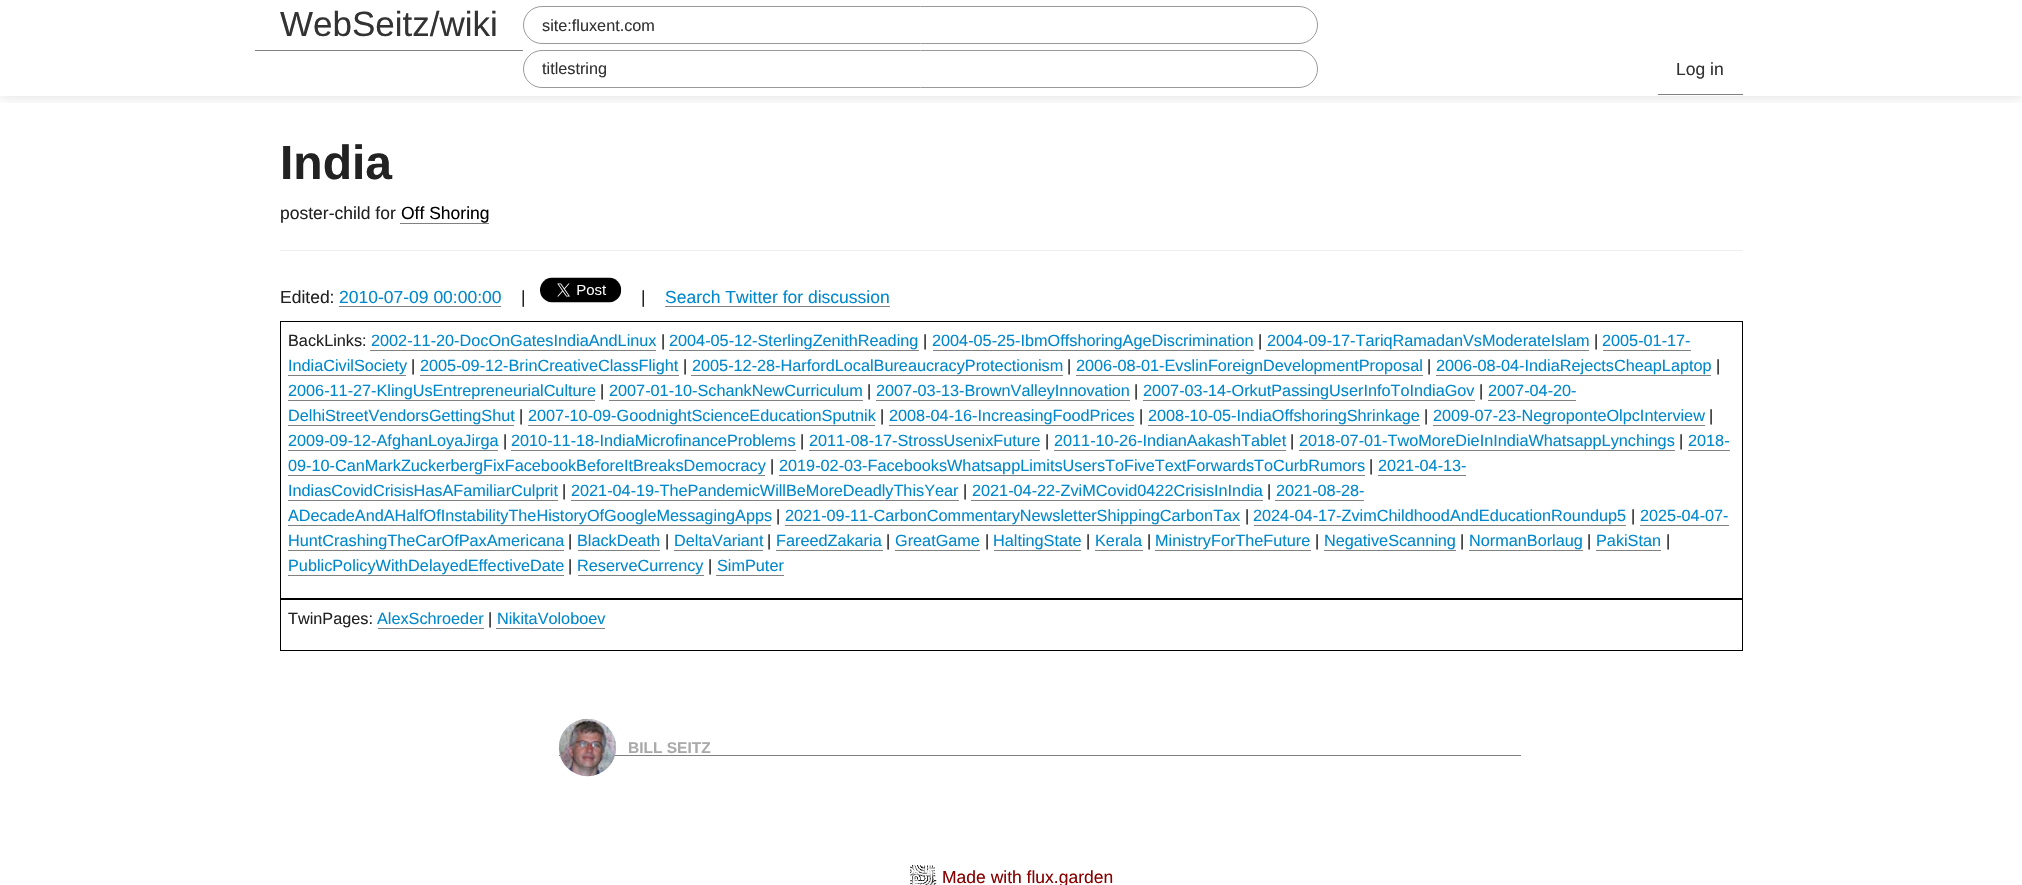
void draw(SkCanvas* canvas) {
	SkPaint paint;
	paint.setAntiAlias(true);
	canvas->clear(0xffffffff);
	canvas->save();
	canvas->clipRect(SkRect::MakeXYWH(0, 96, 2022, 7));
	paint.setColor(0x1a000000);
	paint.setMaskFilter(SkMaskFilter::MakeBlur(kNormal_SkBlurStyle, 6));
	canvas->drawRect(SkRect::MakeXYWH(0, 1, 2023, 97), paint);
	paint.setMaskFilter(nullptr);
	canvas->restore();
	paint.setColor(0xff808080);
	canvas->drawRect(SkRect::MakeXYWH(255, 50, 268, 1), paint);
	SkFont f1(fontMgr->matchFamilyStyle("Liberation Sans", SkFontStyle::Normal()), 35);
	f1.setSubpixel(true);
	paint.setColor(0xff333333);
	canvas->drawString("WebSeitz/wiki", 280, 36, f1, paint);
	paint.setStroke(true);
	paint.setStrokeWidth(1);
	paint.setColor(0xff999999);
	canvas->drawRoundRect(SkRect::MakeXYWH(523.5, 6.5, 794, 37), 18.5, 18.5, paint);
	SkFont f2(fontMgr->matchFamilyStyle("Liberation Sans", SkFontStyle::Normal()), 16.25);
	f2.setSubpixel(true);
	paint.setStroke(false);
	paint.setColor(0xff333333);
	canvas->drawString("site:fluxent.com", 542, 31, f2, paint);
	paint.setStroke(true);
	paint.setColor(0xff999999);
	canvas->drawRoundRect(SkRect::MakeXYWH(523.5, 50.5, 794, 37), 18.5, 18.5, paint);
	paint.setStroke(false);
	paint.setColor(0xff333333);
	canvas->drawString("titlestring", 542, 74, f2, paint);
	paint.setColor(0xff808080);
	canvas->drawRect(SkRect::MakeXYWH(1658, 94, 85, 1), paint);
	SkFont f3(fontMgr->matchFamilyStyle("Liberation Sans", SkFontStyle::Normal()), 17.5);
	f3.setSubpixel(true);
	paint.setColor(0xff333333);
	canvas->drawString("Log in", 1676, 75, f3, paint);
	SkFont f4(fontMgr->matchFamilyStyle("Liberation Sans", SkFontStyle::Bold()), 48);
	f4.setSubpixel(true);
	paint.setColor(0xff222222);
	canvas->drawString("India", 280, 179, f4, paint);
	canvas->drawString("poster-child for", 280, 219, f3, paint);
	paint.setColor(0xff000000);
	canvas->drawString("Off Shoring", 401, 219, f3, paint);
	paint.setColor(0xff808080);
	canvas->drawRect(SkRect::MakeXYWH(400, 223, 89, 1), paint);
	paint.setColor(0xffeeeeee);
	canvas->drawRect(SkRect::MakeXYWH(280, 250, 1463, 1), paint);
	paint.setColor(0xff222222);
	canvas->drawString("Edited:", 280, 303, f3, paint);
	paint.setColor(0xff0088cc);
	canvas->drawString("2010-07-09 00:00:00", 339, 303, f3, paint);
	paint.setColor(0xff808080);
	canvas->drawRect(SkRect::MakeXYWH(339, 306, 162, 1), paint);
	paint.setColor(0xff222222);
	canvas->drawString("|", 521, 303, f3, paint);
	canvas->drawImageRect(SkImages::DeferredFromEncodedData(SkData::MakeFromFileName("img1.png")), SkRect::MakeXYWH(540, 277, 82, 26), SkSamplingOptions());
	canvas->drawString("|", 641, 303, f3, paint);
	paint.setColor(0xff0088cc);
	canvas->drawString("Search Twitter for discussion", 665, 303, f3, paint);
	paint.setColor(0xff808080);
	canvas->drawRect(SkRect::MakeXYWH(665, 306, 225, 1), paint);
	paint.setStroke(true);
	paint.setColor(0xff000000);
	canvas->drawRect(SkRect::MakeXYWH(280.5, 321.5, 1462, 277), paint);
	paint.setStroke(false);
	paint.setColor(0xff222222);
	canvas->drawString("BackLinks:", 288, 346, f2, paint);
	paint.setColor(0xff0088cc);
	canvas->drawString("2002-11-20-DocOnGatesIndiaAndLinux", 371, 346, f2, paint);
	paint.setColor(0xff808080);
	canvas->drawRect(SkRect::MakeXYWH(370, 350, 286, 1), paint);
	paint.setColor(0xff222222);
	canvas->drawString("|", 661, 346, f2, paint);
	paint.setColor(0xff0088cc);
	canvas->drawString("2004-05-12-SterlingZenithReading", 669, 346, f2, paint);
	paint.setColor(0xff808080);
	canvas->drawRect(SkRect::MakeXYWH(669, 350, 250, 1), paint);
	paint.setColor(0xff222222);
	canvas->drawString("|", 923, 346, f2, paint);
	paint.setColor(0xff0088cc);
	canvas->drawString("2004-05-25-IbmOffshoringAgeDiscrimination", 932, 346, f2, paint);
	paint.setColor(0xff808080);
	canvas->drawRect(SkRect::MakeXYWH(933, 350, 321, 1), paint);
	paint.setColor(0xff222222);
	canvas->drawString("|", 1258, 346, f2, paint);
	paint.setColor(0xff0088cc);
	canvas->drawString("2004-09-17-TariqRamadanVsModerateIslam", 1267, 346, f2, paint);
	paint.setColor(0xff808080);
	canvas->drawRect(SkRect::MakeXYWH(1266, 350, 323, 1), paint);
	paint.setColor(0xff222222);
	canvas->drawString("|", 1594, 346, f2, paint);
	paint.setColor(0xff0088cc);
	canvas->drawString("2005-01-17-", 1602, 346, f2, paint);
	paint.setColor(0xff808080);
	canvas->drawRect(SkRect::MakeXYWH(1603, 350, 88, 1), paint);
	paint.setColor(0xff0088cc);
	canvas->drawString("IndiaCivilSociety", 288, 371, f2, paint);
	paint.setColor(0xff808080);
	canvas->drawRect(SkRect::MakeXYWH(288, 375, 118, 1), paint);
	paint.setColor(0xff222222);
	canvas->drawString("|", 411, 371, f2, paint);
	paint.setColor(0xff0088cc);
	canvas->drawString("2005-09-12-BrinCreativeClassFlight", 420, 371, f2, paint);
	paint.setColor(0xff808080);
	canvas->drawRect(SkRect::MakeXYWH(420, 375, 259, 1), paint);
	paint.setColor(0xff222222);
	canvas->drawString("|", 683, 371, f2, paint);
	paint.setColor(0xff0088cc);
	canvas->drawString("2005-12-28-HarfordLocalBureaucracyProtectionism", 692, 371, f2, paint);
	paint.setColor(0xff808080);
	canvas->drawRect(SkRect::MakeXYWH(691, 375, 372, 1), paint);
	paint.setColor(0xff222222);
	canvas->drawString("|", 1067, 371, f2, paint);
	paint.setColor(0xff0088cc);
	canvas->drawString("2006-08-01-EvslinForeignDevelopmentProposal", 1076, 371, f2, paint);
	paint.setColor(0xff808080);
	canvas->drawRect(SkRect::MakeXYWH(1076, 375, 347, 1), paint);
	paint.setColor(0xff222222);
	canvas->drawString("|", 1427, 371, f2, paint);
	paint.setColor(0xff0088cc);
	canvas->drawString("2006-08-04-IndiaRejectsCheapLaptop", 1436, 371, f2, paint);
	paint.setColor(0xff808080);
	canvas->drawRect(SkRect::MakeXYWH(1436, 375, 275, 1), paint);
	paint.setColor(0xff222222);
	canvas->drawString("|", 1716, 371, f2, paint);
	paint.setColor(0xff0088cc);
	canvas->drawString("2006-11-27-KlingUsEntrepreneurialCulture", 288, 396, f2, paint);
	paint.setColor(0xff808080);
	canvas->drawRect(SkRect::MakeXYWH(288, 400, 307, 1), paint);
	paint.setColor(0xff222222);
	canvas->drawString("|", 600, 396, f2, paint);
	paint.setColor(0xff0088cc);
	canvas->drawString("2007-01-10-SchankNewCurriculum", 609, 396, f2, paint);
	paint.setColor(0xff808080);
	canvas->drawRect(SkRect::MakeXYWH(609, 400, 254, 1), paint);
	paint.setColor(0xff222222);
	canvas->drawString("|", 867, 396, f2, paint);
	paint.setColor(0xff0088cc);
	canvas->drawString("2007-03-13-BrownValleyInnovation", 876, 396, f2, paint);
	paint.setColor(0xff808080);
	canvas->drawRect(SkRect::MakeXYWH(876, 400, 254, 1), paint);
	paint.setColor(0xff222222);
	canvas->drawString("|", 1134, 396, f2, paint);
	paint.setColor(0xff0088cc);
	canvas->drawString("2007-03-14-OrkutPassingUserInfoToIndiaGov", 1143, 396, f2, paint);
	paint.setColor(0xff808080);
	canvas->drawRect(SkRect::MakeXYWH(1143, 400, 332, 1), paint);
	paint.setColor(0xff222222);
	canvas->drawString("|", 1479, 396, f2, paint);
	paint.setColor(0xff0088cc);
	canvas->drawString("2007-04-20-", 1488, 396, f2, paint);
	paint.setColor(0xff808080);
	canvas->drawRect(SkRect::MakeXYWH(1488, 400, 88, 1), paint);
	paint.setColor(0xff0088cc);
	canvas->drawString("DelhiStreetVendorsGettingShut", 288, 421, f2, paint);
	paint.setColor(0xff808080);
	canvas->drawRect(SkRect::MakeXYWH(288, 425, 226, 1), paint);
	paint.setColor(0xff222222);
	canvas->drawString("|", 519, 421, f2, paint);
	paint.setColor(0xff0088cc);
	canvas->drawString("2007-10-09-GoodnightScienceEducationSputnik", 528, 421, f2, paint);
	paint.setColor(0xff808080);
	canvas->drawRect(SkRect::MakeXYWH(528, 425, 347, 1), paint);
	paint.setColor(0xff222222);
	canvas->drawString("|", 880, 421, f2, paint);
	paint.setColor(0xff0088cc);
	canvas->drawString("2008-04-16-IncreasingFoodPrices", 889, 421, f2, paint);
	paint.setColor(0xff808080);
	canvas->drawRect(SkRect::MakeXYWH(889, 425, 245, 1), paint);
	paint.setColor(0xff222222);
	canvas->drawString("|", 1139, 421, f2, paint);
	paint.setColor(0xff0088cc);
	canvas->drawString("2008-10-05-IndiaOffshoringShrinkage", 1148, 421, f2, paint);
	paint.setColor(0xff808080);
	canvas->drawRect(SkRect::MakeXYWH(1148, 425, 272, 1), paint);
	paint.setColor(0xff222222);
	canvas->drawString("|", 1424, 421, f2, paint);
	paint.setColor(0xff0088cc);
	canvas->drawString("2009-07-23-NegroponteOlpcInterview", 1433, 421, f2, paint);
	paint.setColor(0xff808080);
	canvas->drawRect(SkRect::MakeXYWH(1433, 425, 272, 1), paint);
	paint.setColor(0xff222222);
	canvas->drawString("|", 1709, 421, f2, paint);
	paint.setColor(0xff0088cc);
	canvas->drawString("2009-09-12-AfghanLoyaJirga", 288, 446, f2, paint);
	paint.setColor(0xff808080);
	canvas->drawRect(SkRect::MakeXYWH(288, 450, 210, 1), paint);
	paint.setColor(0xff222222);
	canvas->drawString("|", 503, 446, f2, paint);
	paint.setColor(0xff0088cc);
	canvas->drawString("2010-11-18-IndiaMicrofinanceProblems", 511, 446, f2, paint);
	paint.setColor(0xff808080);
	canvas->drawRect(SkRect::MakeXYWH(511, 450, 285, 1), paint);
	paint.setColor(0xff222222);
	canvas->drawString("|", 800, 446, f2, paint);
	paint.setColor(0xff0088cc);
	canvas->drawString("2011-08-17-StrossUsenixFuture", 809, 446, f2, paint);
	paint.setColor(0xff808080);
	canvas->drawRect(SkRect::MakeXYWH(809, 450, 231, 1), paint);
	paint.setColor(0xff222222);
	canvas->drawString("|", 1045, 446, f2, paint);
	paint.setColor(0xff0088cc);
	canvas->drawString("2011-10-26-IndianAakashTablet", 1054, 446, f2, paint);
	paint.setColor(0xff808080);
	canvas->drawRect(SkRect::MakeXYWH(1054, 450, 232, 1), paint);
	paint.setColor(0xff222222);
	canvas->drawString("|", 1290, 446, f2, paint);
	paint.setColor(0xff0088cc);
	canvas->drawString("2018-07-01-TwoMoreDieInIndiaWhatsappLynchings", 1299, 446, f2, paint);
	paint.setColor(0xff808080);
	canvas->drawRect(SkRect::MakeXYWH(1299, 450, 376, 1), paint);
	paint.setColor(0xff222222);
	canvas->drawString("|", 1679, 446, f2, paint);
	paint.setColor(0xff0088cc);
	canvas->drawString("2018-", 1688, 446, f2, paint);
	paint.setColor(0xff808080);
	canvas->drawRect(SkRect::MakeXYWH(1688, 450, 42, 1), paint);
	paint.setColor(0xff0088cc);
	canvas->drawString("09-10-CanMarkZuckerbergFixFacebookBeforeItBreaksDemocracy", 288, 471, f2, paint);
	paint.setColor(0xff808080);
	canvas->drawRect(SkRect::MakeXYWH(288, 475, 477, 1), paint);
	paint.setColor(0xff222222);
	canvas->drawString("|", 770, 471, f2, paint);
	paint.setColor(0xff0088cc);
	canvas->drawString("2019-02-03-FacebooksWhatsappLimitsUsersToFiveTextForwardsToCurbRumors", 779, 471, f2, paint);
	paint.setColor(0xff808080);
	canvas->drawRect(SkRect::MakeXYWH(779, 475, 586, 1), paint);
	paint.setColor(0xff222222);
	canvas->drawString("|", 1369, 471, f2, paint);
	paint.setColor(0xff0088cc);
	canvas->drawString("2021-04-13-", 1378, 471, f2, paint);
	paint.setColor(0xff808080);
	canvas->drawRect(SkRect::MakeXYWH(1378, 475, 88, 1), paint);
	paint.setColor(0xff0088cc);
	canvas->drawString("IndiasCovidCrisisHasAFamiliarCulprit", 288, 496, f2, paint);
	paint.setColor(0xff808080);
	canvas->drawRect(SkRect::MakeXYWH(288, 500, 270, 1), paint);
	paint.setColor(0xff222222);
	canvas->drawString("|", 562, 496, f2, paint);
	paint.setColor(0xff0088cc);
	canvas->drawString("2021-04-19-ThePandemicWillBeMoreDeadlyThisYear", 571, 496, f2, paint);
	paint.setColor(0xff808080);
	canvas->drawRect(SkRect::MakeXYWH(571, 500, 388, 1), paint);
	paint.setColor(0xff222222);
	canvas->drawString("|", 963, 496, f2, paint);
	paint.setColor(0xff0088cc);
	canvas->drawString("2021-04-22-ZviMCovid0422CrisisInIndia", 972, 496, f2, paint);
	paint.setColor(0xff808080);
	canvas->drawRect(SkRect::MakeXYWH(971, 500, 292, 1), paint);
	paint.setColor(0xff222222);
	canvas->drawString("|", 1267, 496, f2, paint);
	paint.setColor(0xff0088cc);
	canvas->drawString("2021-08-28-", 1276, 496, f2, paint);
	paint.setColor(0xff808080);
	canvas->drawRect(SkRect::MakeXYWH(1275, 500, 89, 1), paint);
	paint.setColor(0xff0088cc);
	canvas->drawString("ADecadeAndAHalfOfInstabilityTheHistoryOfGoogleMessagingApps", 288, 521, f2, paint);
	paint.setColor(0xff808080);
	canvas->drawRect(SkRect::MakeXYWH(288, 525, 483, 1), paint);
	paint.setColor(0xff222222);
	canvas->drawString("|", 776, 521, f2, paint);
	paint.setColor(0xff0088cc);
	canvas->drawString("2021-09-11-CarbonCommentaryNewsletterShippingCarbonTax", 785, 521, f2, paint);
	paint.setColor(0xff808080);
	canvas->drawRect(SkRect::MakeXYWH(785, 525, 455, 1), paint);
	paint.setColor(0xff222222);
	canvas->drawString("|", 1245, 521, f2, paint);
	paint.setColor(0xff0088cc);
	canvas->drawString("2024-04-17-ZvimChildhoodAndEducationRoundup5", 1253, 521, f2, paint);
	paint.setColor(0xff808080);
	canvas->drawRect(SkRect::MakeXYWH(1254, 525, 372, 1), paint);
	paint.setColor(0xff222222);
	canvas->drawString("|", 1631, 521, f2, paint);
	paint.setColor(0xff0088cc);
	canvas->drawString("2025-04-07-", 1640, 521, f2, paint);
	paint.setColor(0xff808080);
	canvas->drawRect(SkRect::MakeXYWH(1640, 525, 89, 1), paint);
	paint.setColor(0xff0088cc);
	canvas->drawString("HuntCrashingTheCarOfPaxAmericana", 288, 546, f2, paint);
	paint.setColor(0xff808080);
	canvas->drawRect(SkRect::MakeXYWH(288, 550, 276, 1), paint);
	paint.setColor(0xff222222);
	canvas->drawString("|", 568, 546, f2, paint);
	paint.setColor(0xff0088cc);
	canvas->drawString("BlackDeath", 577, 546, f2, paint);
	paint.setColor(0xff808080);
	canvas->drawRect(SkRect::MakeXYWH(578, 550, 82, 1), paint);
	paint.setColor(0xff222222);
	canvas->drawString("|", 665, 546, f2, paint);
	paint.setColor(0xff0088cc);
	canvas->drawString("DeltaVariant", 674, 546, f2, paint);
	paint.setColor(0xff808080);
	canvas->drawRect(SkRect::MakeXYWH(674, 550, 89, 1), paint);
	paint.setColor(0xff222222);
	canvas->drawString("|", 767, 546, f2, paint);
	paint.setColor(0xff0088cc);
	canvas->drawString("FareedZakaria", 776, 546, f2, paint);
	paint.setColor(0xff808080);
	canvas->drawRect(SkRect::MakeXYWH(776, 550, 107, 1), paint);
	paint.setColor(0xff222222);
	canvas->drawString("|", 886, 546, f2, paint);
	paint.setColor(0xff0088cc);
	canvas->drawString("GreatGame", 895, 546, f2, paint);
	paint.setColor(0xff808080);
	canvas->drawRect(SkRect::MakeXYWH(895, 550, 85, 1), paint);
	paint.setColor(0xff222222);
	canvas->drawString("|", 985, 546, f2, paint);
	paint.setColor(0xff0088cc);
	canvas->drawString("HaltingState", 993, 546, f2, paint);
	paint.setColor(0xff808080);
	canvas->drawRect(SkRect::MakeXYWH(994, 550, 87, 1), paint);
	paint.setColor(0xff222222);
	canvas->drawString("|", 1086, 546, f2, paint);
	paint.setColor(0xff0088cc);
	canvas->drawString("Kerala", 1095, 546, f2, paint);
	paint.setColor(0xff808080);
	canvas->drawRect(SkRect::MakeXYWH(1095, 550, 48, 1), paint);
	paint.setColor(0xff222222);
	canvas->drawString("|", 1147, 546, f2, paint);
	paint.setColor(0xff0088cc);
	canvas->drawString("MinistryForTheFuture", 1155, 546, f2, paint);
	paint.setColor(0xff808080);
	canvas->drawRect(SkRect::MakeXYWH(1155, 550, 156, 1), paint);
	paint.setColor(0xff222222);
	canvas->drawString("|", 1315, 546, f2, paint);
	paint.setColor(0xff0088cc);
	canvas->drawString("NegativeScanning", 1324, 546, f2, paint);
	paint.setColor(0xff808080);
	canvas->drawRect(SkRect::MakeXYWH(1324, 550, 132, 1), paint);
	paint.setColor(0xff222222);
	canvas->drawString("|", 1460, 546, f2, paint);
	paint.setColor(0xff0088cc);
	canvas->drawString("NormanBorlaug", 1469, 546, f2, paint);
	paint.setColor(0xff808080);
	canvas->drawRect(SkRect::MakeXYWH(1469, 550, 114, 1), paint);
	paint.setColor(0xff222222);
	canvas->drawString("|", 1587, 546, f2, paint);
	paint.setColor(0xff0088cc);
	canvas->drawString("PakiStan", 1596, 546, f2, paint);
	paint.setColor(0xff808080);
	canvas->drawRect(SkRect::MakeXYWH(1596, 550, 65, 1), paint);
	paint.setColor(0xff222222);
	canvas->drawString("|", 1666, 546, f2, paint);
	paint.setColor(0xff0088cc);
	canvas->drawString("PublicPolicyWithDelayedEffectiveDate", 288, 571, f2, paint);
	paint.setColor(0xff808080);
	canvas->drawRect(SkRect::MakeXYWH(288, 575, 276, 1), paint);
	paint.setColor(0xff222222);
	canvas->drawString("|", 568, 571, f2, paint);
	paint.setColor(0xff0088cc);
	canvas->drawString("ReserveCurrency", 577, 571, f2, paint);
	paint.setColor(0xff808080);
	canvas->drawRect(SkRect::MakeXYWH(578, 575, 126, 1), paint);
	paint.setColor(0xff222222);
	canvas->drawString("|", 708, 571, f2, paint);
	paint.setColor(0xff0088cc);
	canvas->drawString("SimPuter", 717, 571, f2, paint);
	paint.setColor(0xff808080);
	canvas->drawRect(SkRect::MakeXYWH(716, 575, 68, 1), paint);
	paint.setStroke(true);
	paint.setColor(0xff000000);
	canvas->drawRect(SkRect::MakeXYWH(280.5, 599.5, 1462, 51), paint);
	paint.setStroke(false);
	paint.setColor(0xff222222);
	canvas->drawString("TwinPages:", 288, 624, f2, paint);
	paint.setColor(0xff0088cc);
	canvas->drawString("AlexSchroeder", 377, 624, f2, paint);
	paint.setColor(0xff808080);
	canvas->drawRect(SkRect::MakeXYWH(378, 628, 106, 1), paint);
	paint.setColor(0xff222222);
	canvas->drawString("|", 488, 624, f2, paint);
	paint.setColor(0xff0088cc);
	canvas->drawString("NikitaVoloboev", 497, 624, f2, paint);
	paint.setColor(0xff808080);
	canvas->drawRect(SkRect::MakeXYWH(496, 628, 109, 1), paint);
	canvas->drawRect(SkRect::MakeXYWH(559, 755, 962, 1), paint);
	canvas->drawImageRect(SkImages::DeferredFromEncodedData(SkData::MakeFromFileName("img2.png")), SkRect::MakeXYWH(558, 718, 59, 59), SkSamplingOptions());
	SkFont f5(fontMgr->matchFamilyStyle("Liberation Sans", SkFontStyle::Bold()), 15.5);
	f5.setSubpixel(true);
	paint.setColor(0xffaaaaaa);
	canvas->drawString("BILL SEITZ", 628, 753, f5, paint);
	canvas->drawImageRect(SkImages::DeferredFromEncodedData(SkData::MakeFromFileName("img3.png")), SkRect::MakeXYWH(910, 865, 27, 20), SkSamplingOptions());
	paint.setColor(0xff880000);
	canvas->drawString("Made with flux.garden", 942, 883, f3, paint);
}
